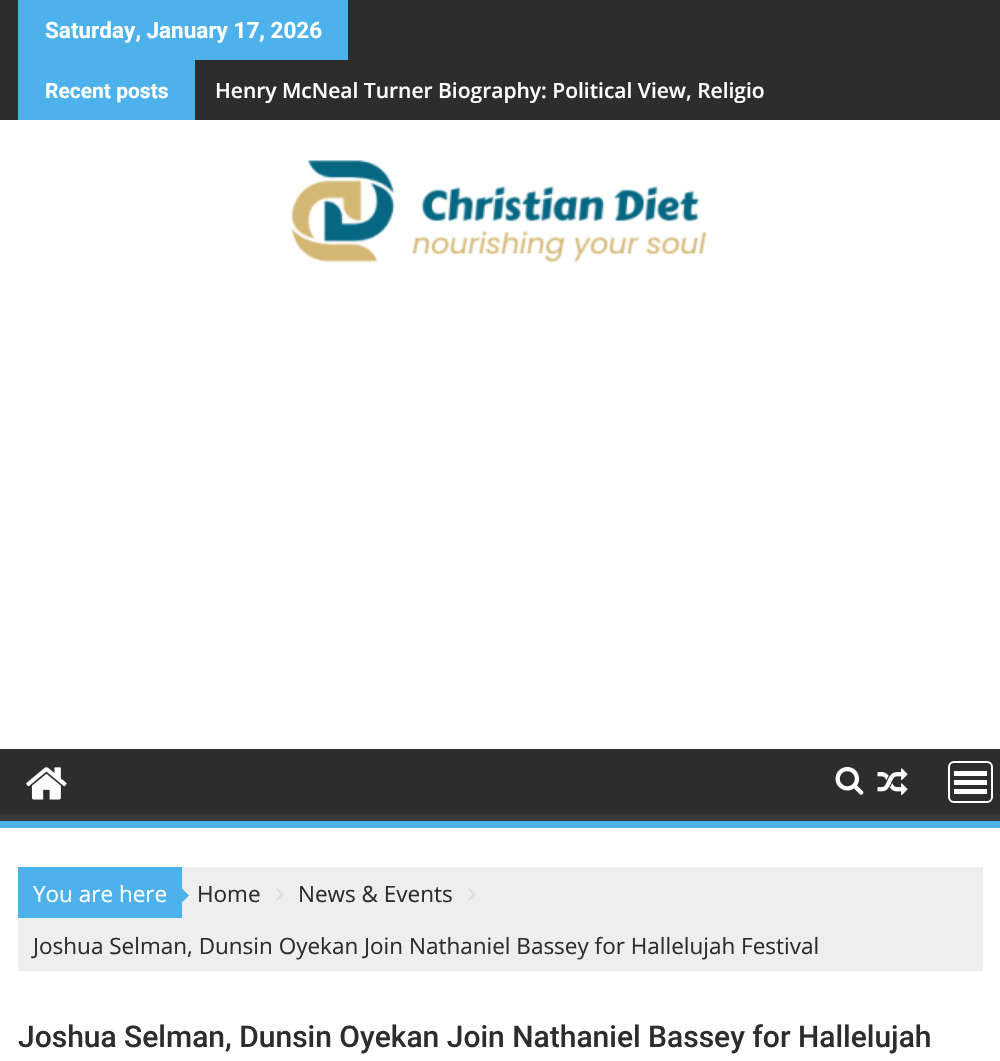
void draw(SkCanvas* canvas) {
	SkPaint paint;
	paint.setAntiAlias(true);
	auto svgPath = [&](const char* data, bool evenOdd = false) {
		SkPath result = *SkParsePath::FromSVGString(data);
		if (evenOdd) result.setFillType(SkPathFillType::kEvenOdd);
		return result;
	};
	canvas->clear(0xffffffff);
	paint.setColor(0xff2d2d2d);
	canvas->drawRect(SkRect::MakeXYWH(0, 0, 1000, 120), paint);
	paint.setColor(0xff4db2ec);
	canvas->drawRect(SkRect::MakeXYWH(18, 0, 330, 60), paint);
	SkFont f1(fontMgr->matchFamilyStyle("Roboto", SkFontStyle::Bold()), 22.5);
	f1.setSubpixel(true);
	paint.setColor(0xffffffff);
	canvas->drawString("Saturday, January 17, 2026", 45, 38, f1, paint);
	paint.setColor(0xff4db2ec);
	canvas->drawRect(SkRect::MakeXYWH(18, 60, 177, 60), paint);
	SkFont f2(fontMgr->matchFamilyStyle("Roboto", SkFontStyle::Bold()), 21);
	f2.setSubpixel(true);
	paint.setColor(0xffffffff);
	canvas->drawString("Recent posts", 45, 98, f2, paint);
	SkFont f3(fontMgr->matchFamilyStyle("Open Sans", SkFontStyle(600, SkFontStyle::kNormal_Width, SkFontStyle::kUpright_Slant)), 21);
	f3.setSubpixel(true);
	canvas->drawString("Henry McNeal Turner Biography: Political View, Religio", 215, 98, f3, paint);
	canvas->drawImageRect(SkImages::DeferredFromEncodedData(SkData::MakeFromFileName("img1.png")), SkRect::MakeXYWH(290, 160, 417, 103), SkSamplingOptions());
	paint.setColor(0xff2d2d2d);
	canvas->drawRect(SkRect::MakeXYWH(0, 749, 1000, 65), paint);
	canvas->save();
	canvas->clipRect(SkRect::MakeXYWH(0, 749, 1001, 72));
	paint.setColor(0xff393939);
	canvas->drawPath(svgPath("M-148 600H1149V969H-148ZM-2 740H999C1000 740 1000 740 1000 741V813C1000 814 1000 814 999 814H-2C-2 814-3 814-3 813V741C-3 740-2 740-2 740Z", true), paint);
	canvas->restore();
	paint.setColor(0xff4db2ec);
	canvas->drawRect(SkRect::MakeXYWH(0, 821, 1000, 7), paint);
	canvas->drawImageRect(SkImages::DeferredFromEncodedData(SkData::MakeFromFileName("img2.png")), SkRect::MakeXYWH(26, 767, 41, 33), SkSamplingOptions());
	canvas->drawImageRect(SkImages::DeferredFromEncodedData(SkData::MakeFromFileName("img3.png")), SkRect::MakeXYWH(835, 766, 29, 29), SkSamplingOptions());
	canvas->drawImageRect(SkImages::DeferredFromEncodedData(SkData::MakeFromFileName("img4.png")), SkRect::MakeXYWH(877, 768, 31, 28), SkSamplingOptions());
	paint.setStroke(true);
	paint.setStrokeWidth(2);
	paint.setColor(0xffffffff);
	canvas->drawRoundRect(SkRect::MakeXYWH(949, 762, 43, 40), 5, 5, paint);
	paint.setStroke(false);
	canvas->drawRect(SkRect::MakeXYWH(954, 789, 33, 5), paint);
	canvas->drawRect(SkRect::MakeXYWH(954, 780, 33, 5), paint);
	canvas->drawRect(SkRect::MakeXYWH(954, 771, 33, 5), paint);
	paint.setColor(0xffeeeeef);
	canvas->drawRect(SkRect::MakeXYWH(18, 867, 965, 104), paint);
	paint.setColor(0xff4db2ec);
	canvas->drawRect(SkRect::MakeXYWH(18, 867, 164, 51), paint);
	SkFont f4(fontMgr->matchFamilyStyle("Open Sans", SkFontStyle::Normal()), 22.5);
	f4.setSubpixel(true);
	paint.setColor(0xffffffff);
	canvas->drawString("You are here", 33, 902, f4, paint);
	paint.setColor(0xff4db2ec);
	canvas->drawPath(svgPath("M181.5 903V888L189 895.5Z"), paint);
	paint.setColor(0xff2d2d2d);
	canvas->drawString("Home", 197, 902, f4, paint);
	canvas->drawImageRect(SkImages::DeferredFromEncodedData(SkData::MakeFromFileName("img5.png")), SkRect::MakeXYWH(276, 888, 8, 13), SkSamplingOptions());
	canvas->drawString("News & Events", 298, 902, f4, paint);
	canvas->drawImageRect(SkImages::DeferredFromEncodedData(SkData::MakeFromFileName("img5.png")), SkRect::MakeXYWH(468, 888, 8, 13), SkSamplingOptions());
	canvas->drawString("Joshua Selman, Dunsin Oyekan Join Nathaniel Bassey for Hallelujah Festival", 33, 954, f4, paint);
	SkFont f5(fontMgr->matchFamilyStyle("Roboto", SkFontStyle(500, SkFontStyle::kNormal_Width, SkFontStyle::kUpright_Slant)), 30);
	f5.setSubpixel(true);
	canvas->drawString("Joshua Selman, Dunsin Oyekan Join Nathaniel Bassey for Hallelujah", 18, 1047, f5, paint);
}
